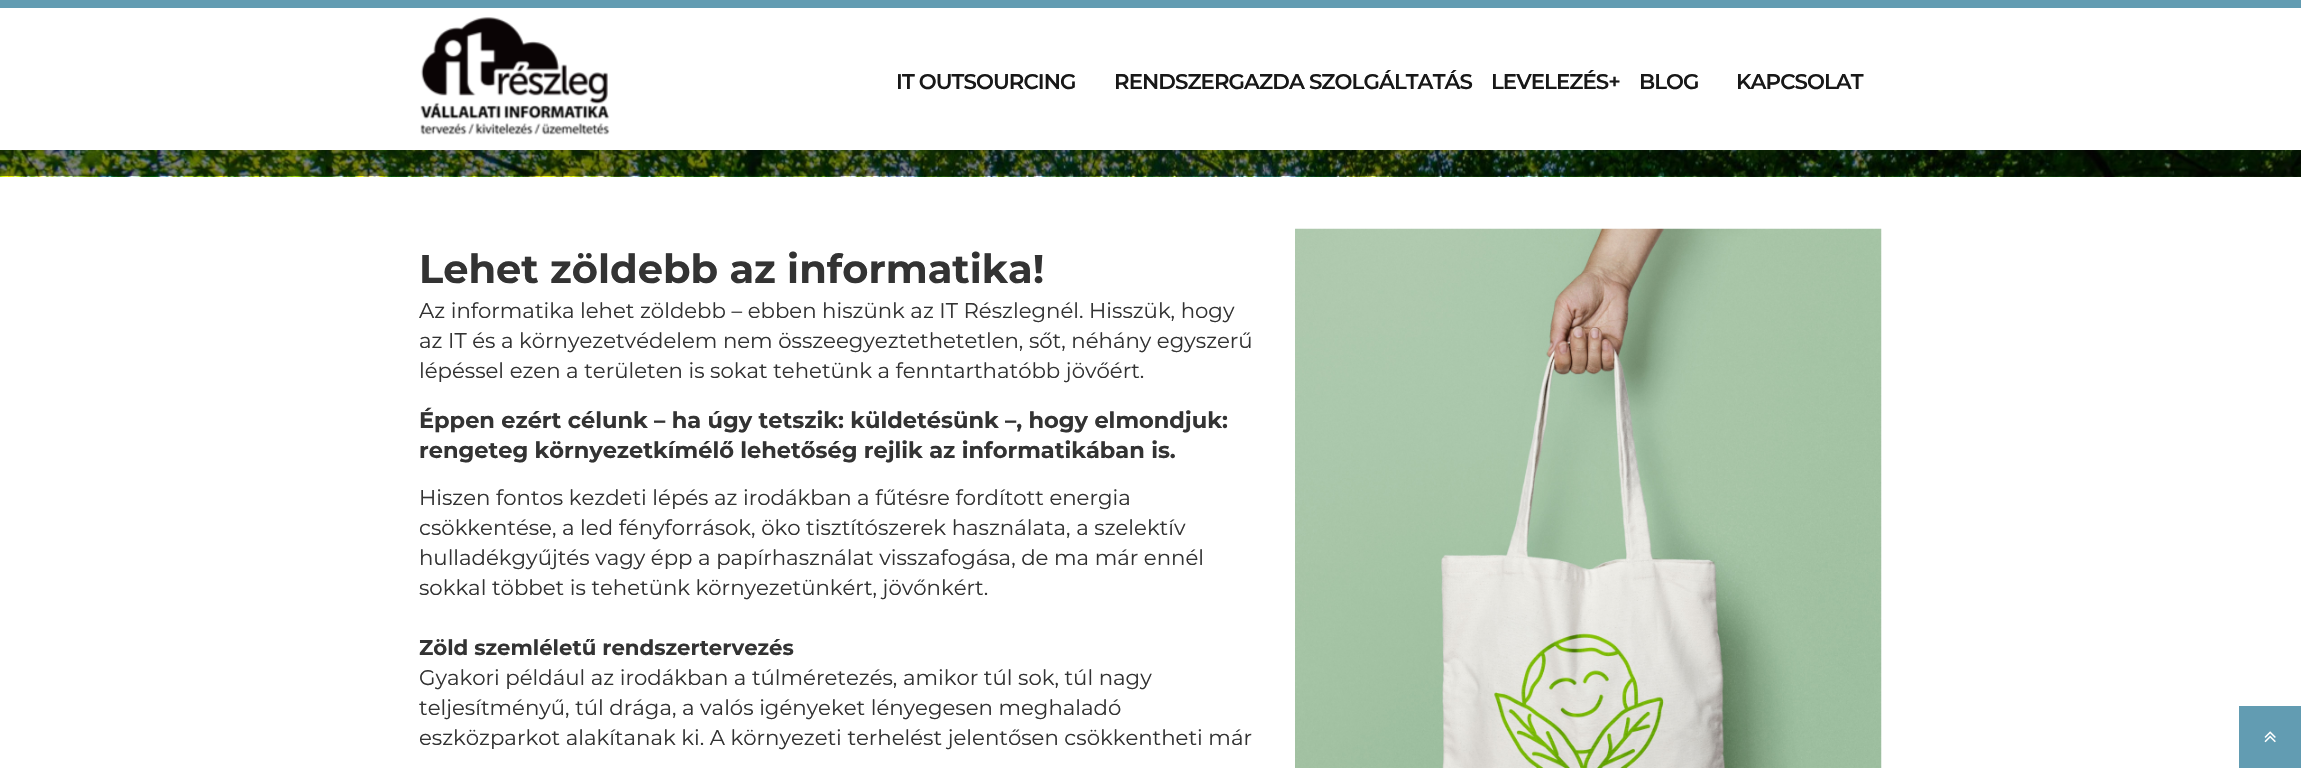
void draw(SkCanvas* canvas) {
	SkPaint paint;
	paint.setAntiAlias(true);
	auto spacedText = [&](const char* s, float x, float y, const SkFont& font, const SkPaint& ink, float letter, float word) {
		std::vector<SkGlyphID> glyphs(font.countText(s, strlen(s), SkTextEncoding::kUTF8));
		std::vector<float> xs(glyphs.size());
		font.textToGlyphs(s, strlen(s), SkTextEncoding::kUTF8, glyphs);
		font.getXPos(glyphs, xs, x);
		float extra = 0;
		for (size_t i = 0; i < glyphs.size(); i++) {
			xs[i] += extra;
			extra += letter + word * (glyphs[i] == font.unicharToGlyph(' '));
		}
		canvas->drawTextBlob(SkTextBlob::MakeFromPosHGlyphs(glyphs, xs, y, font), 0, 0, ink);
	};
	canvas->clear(0xffffffff);
	canvas->drawImageRect(SkImages::DeferredFromEncodedData(SkData::MakeFromFileName("img2.png")), SkRect::MakeXYWH(0, 150, 2301, 27), SkSamplingOptions());
	paint.setColor(0x1a333333);
	paint.setMaskFilter(SkMaskFilter::MakeBlur(kNormal_SkBlurStyle, 4));
	canvas->drawRect(SkRect::MakeXYWH(0, 0, 2301, 150), paint);
	paint.setMaskFilter(nullptr);
	paint.setColor(0xffffffff);
	canvas->drawRect(SkRect::MakeXYWH(0, 8, 2301, 142), paint);
	paint.setColor(0xff629cb2);
	canvas->drawRect(SkRect::MakeXYWH(0, 0, 2301, 8), paint);
	canvas->drawImageRect(SkImages::DeferredFromEncodedData(SkData::MakeFromFileName("img1.png")), SkRect::MakeXYWH(420, 17, 190, 118), SkSamplingOptions());
	SkFont f1(fontMgr->matchFamilyStyle("Montserrat", SkFontStyle(600, SkFontStyle::kNormal_Width, SkFontStyle::kUpright_Slant)), 21.25);
	f1.setSubpixel(true);
	paint.setColor(0xff181818);
	spacedText("IT OUTSOURCING", 896, 89, f1, paint, -0.9, 0);
	spacedText("RENDSZERGAZDA SZOLGÁLTATÁS", 1114, 89, f1, paint, -0.9, 0);
	spacedText("LEVELEZÉS+", 1491, 89, f1, paint, -0.9, 0);
	spacedText("BLOG", 1639, 89, f1, paint, -0.9, 0);
	spacedText("KAPCSOLAT", 1736, 89, f1, paint, -0.9, 0);
	SkFont f2(fontMgr->matchFamilyStyle("Montserrat", SkFontStyle::Bold()), 40);
	f2.setSubpixel(true);
	paint.setColor(0xff333333);
	canvas->drawString("Lehet zöldebb az informatika!", 419, 283, f2, paint);
	SkFont f3(fontMgr->matchFamilyStyle("Montserrat", SkFontStyle::Normal()), 21.25);
	f3.setSubpixel(true);
	canvas->drawString("Az informatika lehet zöldebb – ebben hiszünk az IT Részlegnél. Hisszük, hogy", 419, 318, f3, paint);
	canvas->drawString("az IT és a környezetvédelem nem összeegyeztethetetlen, sőt, néhány egyszerű", 419, 348, f3, paint);
	canvas->drawString("lépéssel ezen a területen is sokat tehetünk a fenntarthatóbb jövőért.", 419, 378, f3, paint);
	SkFont f4(fontMgr->matchFamilyStyle("Montserrat", SkFontStyle::Bold()), 22.5);
	f4.setSubpixel(true);
	canvas->drawString("Éppen ezért célunk – ha úgy tetszik: küldetésünk –, hogy elmondjuk:", 419, 428, f4, paint);
	canvas->drawString("rengeteg környezetkímélő lehetőség rejlik az informatikában is.", 419, 458, f4, paint);
	canvas->drawString("Hiszen fontos kezdeti lépés az irodákban a fűtésre fordított energia", 419, 505, f3, paint);
	canvas->drawString("csökkentése, a led fényforrások, öko tisztítószerek használata, a szelektív", 419, 535, f3, paint);
	canvas->drawString("hulladékgyűjtés vagy épp a papírhasználat visszafogása, de ma már ennél", 419, 565, f3, paint);
	canvas->drawString("sokkal többet is tehetünk környezetünkért, jövőnkért.", 419, 595, f3, paint);
	SkFont f5(fontMgr->matchFamilyStyle("Montserrat", SkFontStyle::Bold()), 21.25);
	f5.setSubpixel(true);
	canvas->drawString("Zöld szemléletű rendszertervezés", 419, 655, f5, paint);
	canvas->drawString("Gyakori például az irodákban a túlméretezés, amikor túl sok, túl nagy", 419, 685, f3, paint);
	canvas->drawString("teljesítményű, túl drága, a valós igényeket lényegesen meghaladó", 419, 715, f3, paint);
	canvas->drawString("eszközparkot alakítanak ki. A környezeti terhelést jelentősen csökkentheti már", 419, 745, f3, paint);
	canvas->drawImageRect(SkImages::DeferredFromEncodedData(SkData::MakeFromFileName("img3.png")), SkRect::MakeXYWH(1295, 228, 587, 540), SkSamplingOptions());
	paint.setColor(0xff629cb2);
	canvas->drawRect(SkRect::MakeXYWH(2239, 706, 62, 62), paint);
	canvas->drawImageRect(SkImages::DeferredFromEncodedData(SkData::MakeFromFileName("img4.png")), SkRect::MakeXYWH(2264, 731, 12, 12), SkSamplingOptions());
}
